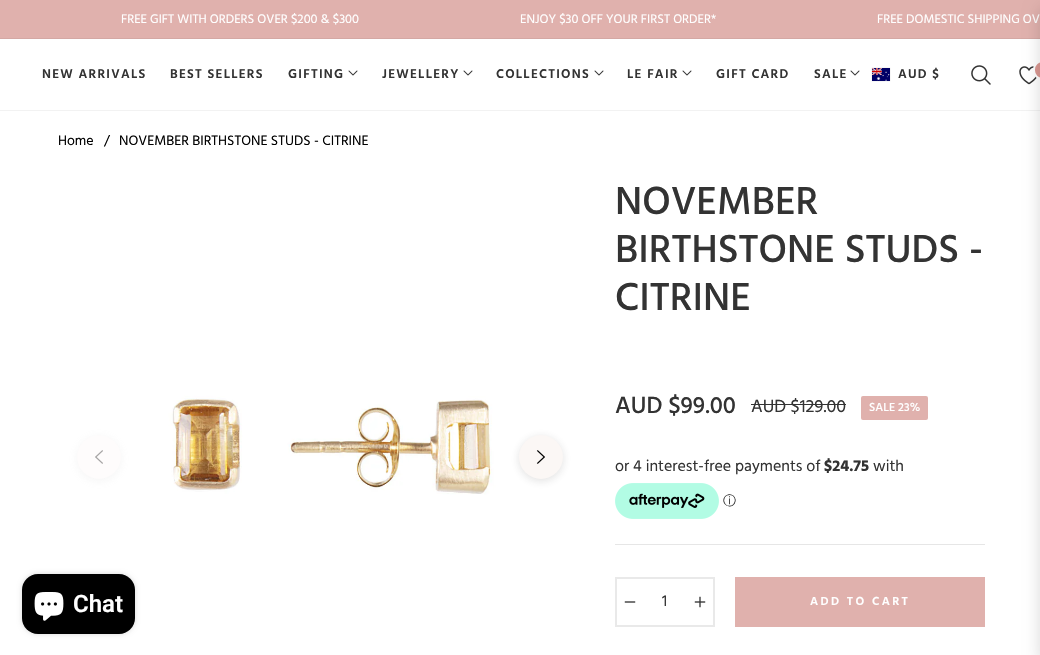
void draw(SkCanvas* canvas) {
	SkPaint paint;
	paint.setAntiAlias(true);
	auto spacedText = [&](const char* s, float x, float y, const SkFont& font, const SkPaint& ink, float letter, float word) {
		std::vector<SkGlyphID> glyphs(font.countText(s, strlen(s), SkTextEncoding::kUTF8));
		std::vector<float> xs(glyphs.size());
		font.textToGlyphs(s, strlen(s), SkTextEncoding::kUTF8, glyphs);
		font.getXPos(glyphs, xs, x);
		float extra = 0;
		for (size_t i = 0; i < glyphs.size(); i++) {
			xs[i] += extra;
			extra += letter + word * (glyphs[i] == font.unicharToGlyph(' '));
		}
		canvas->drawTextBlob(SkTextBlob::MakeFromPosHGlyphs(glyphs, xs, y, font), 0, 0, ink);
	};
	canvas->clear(0xffffffff);
	paint.setColor(0xffe0b1ad);
	canvas->drawRect(SkRect::MakeXYWH(0, 0, 1040, 39), paint);
	SkFont f1(fontMgr->matchFamilyStyle("Hind", SkFontStyle::Normal()), 12.75);
	f1.setSubpixel(true);
	paint.setColor(0xffffffff);
	canvas->drawString("FREE GIFT WITH ORDERS OVER $200 & $300", 121, 23, f1, paint);
	canvas->drawString("ENJOY $30 OFF YOUR FIRST ORDER*", 520, 23, f1, paint);
	canvas->drawString("FREE DOMESTIC SHIPPING OV", 877, 23, f1, paint);
	paint.setStroke(true);
	paint.setStrokeWidth(1);
	paint.setColor(0x0d000000);
	canvas->drawRect(SkRect::MakeXYWH(-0.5, 38.5, 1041, 72), paint);
	SkFont f2(fontMgr->matchFamilyStyle("Hind", SkFontStyle(600, SkFontStyle::kNormal_Width, SkFontStyle::kUpright_Slant)), 13);
	f2.setSubpixel(true);
	paint.setStroke(false);
	paint.setColor(0xff333333);
	spacedText("NEW ARRIVALS", 42, 78, f2, paint, 1.25, 0);
	spacedText("BEST SELLERS", 170, 78, f2, paint, 1.25, 0);
	spacedText("GIFTING", 288, 78, f2, paint, 1.25, 0);
	canvas->drawImageRect(SkImages::DeferredFromEncodedData(SkData::MakeFromFileName("img1.png")), SkRect::MakeXYWH(348, 70, 10, 6), SkSamplingOptions());
	spacedText("JEWELLERY", 382, 78, f2, paint, 1.25, 0);
	canvas->drawImageRect(SkImages::DeferredFromEncodedData(SkData::MakeFromFileName("img1.png")), SkRect::MakeXYWH(463, 70, 10, 6), SkSamplingOptions());
	spacedText("COLLECTIONS", 496, 78, f2, paint, 1.25, 0);
	canvas->drawImageRect(SkImages::DeferredFromEncodedData(SkData::MakeFromFileName("img1.png")), SkRect::MakeXYWH(594, 70, 10, 6), SkSamplingOptions());
	spacedText("LE FAIR", 627, 78, f2, paint, 1.25, 0);
	canvas->drawImageRect(SkImages::DeferredFromEncodedData(SkData::MakeFromFileName("img1.png")), SkRect::MakeXYWH(682, 70, 10, 6), SkSamplingOptions());
	spacedText("GIFT CARD", 716, 78, f2, paint, 1.25, 0);
	spacedText("SALE", 814, 78, f2, paint, 1.25, 0);
	canvas->drawImageRect(SkImages::DeferredFromEncodedData(SkData::MakeFromFileName("img1.png")), SkRect::MakeXYWH(850, 70, 10, 6), SkSamplingOptions());
	canvas->drawImageRect(SkImages::DeferredFromEncodedData(SkData::MakeFromFileName("img4.png")), SkRect::MakeXYWH(1019, 66, 18, 19), SkSamplingOptions());
	paint.setColor(0xffda9892);
	canvas->drawRoundRect(SkRect::MakeXYWH(1034, 61, 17, 18), 9, 9, paint);
	paint.setStroke(true);
	paint.setStrokeWidth(2);
	paint.setColor(0xffffffff);
	canvas->drawRoundRect(SkRect::MakeXYWH(1034, 61, 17, 18), 9, 9, paint);
	paint.setStroke(false);
	paint.setColor(0x26000000);
	paint.setMaskFilter(SkMaskFilter::MakeBlur(kNormal_SkBlurStyle, 8));
	canvas->drawRect(SkRect::MakeXYWH(1040, 8, 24, 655), paint);
	paint.setMaskFilter(nullptr);
	paint.setColor(0x33000000);
	paint.setMaskFilter(SkMaskFilter::MakeBlur(kNormal_SkBlurStyle, 0.5));
	canvas->drawRect(SkRect::MakeXYWH(872, 68, 18, 13), paint);
	paint.setMaskFilter(nullptr);
	canvas->drawImageRect(SkImages::DeferredFromEncodedData(SkData::MakeFromFileName("img2.png")), SkRect::MakeXYWH(872, 68, 18, 13), SkSamplingOptions());
	paint.setColor(0xff333333);
	spacedText("AUD $", 898, 78, f2, paint, 1.25, 0);
	canvas->drawImageRect(SkImages::DeferredFromEncodedData(SkData::MakeFromFileName("img3.png")), SkRect::MakeXYWH(971, 65, 20, 20), SkSamplingOptions());
	SkFont f3(fontMgr->matchFamilyStyle("Hind", SkFontStyle::Normal()), 14);
	f3.setSubpixel(true);
	paint.setColor(0xff000000);
	canvas->drawString("Home", 58, 145, f3, paint);
	canvas->drawString("/", 104, 145, f3, paint);
	canvas->drawString("NOVEMBER BIRTHSTONE STUDS - CITRINE", 119, 145, f3, paint);
	canvas->drawImageRect(SkImages::DeferredFromEncodedData(SkData::MakeFromFileName("img5.png")), SkRect::MakeXYWH(55, 180, 530, 475), SkSamplingOptions());
	paint.setColor(0x26b9b9b9);
	paint.setMaskFilter(SkMaskFilter::MakeBlur(kNormal_SkBlurStyle, 4));
	canvas->drawRoundRect(SkRect::MakeXYWH(77, 437, 44, 44), 22, 22, paint);
	paint.setMaskFilter(nullptr);
	paint.setColor(0xfffefcfc);
	canvas->drawCircle(99, 457, 22, paint);
	canvas->drawImageRect(SkImages::DeferredFromEncodedData(SkData::MakeFromFileName("img6.png")), SkRect::MakeXYWH(95, 450, 8, 14), SkSamplingOptions());
	paint.setColor(0x26363636);
	paint.setMaskFilter(SkMaskFilter::MakeBlur(kNormal_SkBlurStyle, 4));
	canvas->drawRoundRect(SkRect::MakeXYWH(519, 437, 44, 44), 22, 22, paint);
	paint.setMaskFilter(nullptr);
	paint.setColor(0xfffbf7f5);
	canvas->drawCircle(541, 457, 22, paint);
	canvas->drawImageRect(SkImages::DeferredFromEncodedData(SkData::MakeFromFileName("img7.png")), SkRect::MakeXYWH(536, 450, 9, 14), SkSamplingOptions());
	SkFont f4(fontMgr->matchFamilyStyle("Hind", SkFontStyle(500, SkFontStyle::kNormal_Width, SkFontStyle::kUpright_Slant)), 40);
	f4.setSubpixel(true);
	paint.setColor(0xff333333);
	canvas->drawString("NOVEMBER", 615, 214, f4, paint);
	canvas->drawString("BIRTHSTONE STUDS -", 615, 262, f4, paint);
	canvas->drawString("CITRINE", 615, 310, f4, paint);
	SkFont f5(fontMgr->matchFamilyStyle("Hind", SkFontStyle(500, SkFontStyle::kNormal_Width, SkFontStyle::kUpright_Slant)), 24);
	f5.setSubpixel(true);
	canvas->drawString("AUD $99.00", 615, 413, f5, paint);
	SkFont f6(fontMgr->matchFamilyStyle("Hind", SkFontStyle::Normal()), 18);
	f6.setSubpixel(true);
	canvas->drawString("AUD $129.00", 751, 412, f6, paint);
	canvas->drawRect(SkRect::MakeXYWH(751, 404, 95, 1), paint);
	paint.setColor(0xffe0b1ad);
	canvas->drawRoundRect(SkRect::MakeXYWH(861, 396, 67, 24), 2, 2, paint);
	SkFont f7(fontMgr->matchFamilyStyle("Hind", SkFontStyle(500, SkFontStyle::kNormal_Width, SkFontStyle::kUpright_Slant)), 12);
	f7.setSubpixel(true);
	paint.setColor(0xffffffff);
	canvas->drawString("SALE 23%", 869, 411, f7, paint);
	SkFont f8(fontMgr->matchFamilyStyle("Hind", SkFontStyle::Normal()), 16);
	f8.setSubpixel(true);
	paint.setColor(0xff333333);
	canvas->drawString("or 4 interest-free payments of", 615, 471, f8, paint);
	SkFont f9(fontMgr->matchFamilyStyle("Hind", SkFontStyle::Bold()), 16);
	f9.setSubpixel(true);
	canvas->drawString("$24.75", 824, 471, f9, paint);
	canvas->drawString("with", 873, 471, f8, paint);
	canvas->drawImageRect(SkImages::DeferredFromEncodedData(SkData::MakeFromFileName("img8.png")), SkRect::MakeXYWH(615, 483, 104, 36), SkSamplingOptions());
	SkFont f10(fontMgr->matchFamilyStyle("WenQuanYi Zen Hei", SkFontStyle(500, SkFontStyle::kNormal_Width, SkFontStyle::kUpright_Slant)), 13);
	f10.setSubpixel(true);
	canvas->drawString("ⓘ", 723, 505, f10, paint);
	paint.setColor(0xffe6e6e6);
	canvas->drawRect(SkRect::MakeXYWH(615, 544, 370, 1), paint);
	paint.setStroke(true);
	paint.setColor(0xffe9e9e9);
	canvas->drawRect(SkRect::MakeXYWH(616, 578, 98, 48), paint);
	canvas->drawImageRect(SkImages::DeferredFromEncodedData(SkData::MakeFromFileName("img9.png")), SkRect::MakeXYWH(624, 601, 12, 2), SkSamplingOptions());
	paint.setStroke(false);
	paint.setColor(0xff333333);
	canvas->drawString("1", 662, 606, f8, paint);
	canvas->drawImageRect(SkImages::DeferredFromEncodedData(SkData::MakeFromFileName("img10.png")), SkRect::MakeXYWH(694, 596, 12, 12), SkSamplingOptions());
	paint.setColor(0xffe0b1ad);
	canvas->drawRect(SkRect::MakeXYWH(735, 577, 250, 50), paint);
	SkFont f11(fontMgr->matchFamilyStyle("Hind", SkFontStyle(600, SkFontStyle::kNormal_Width, SkFontStyle::kUpright_Slant)), 12);
	f11.setSubpixel(true);
	paint.setColor(0xffffffff);
	spacedText("ADD TO CART", 810, 605, f11, paint, 2.4, 0);
	paint.setColor(0x26000000);
	paint.setMaskFilter(SkMaskFilter::MakeBlur(kNormal_SkBlurStyle, 2.5));
	canvas->drawRoundRect(SkRect::MakeXYWH(22, 574, 113, 60), 16, 16, paint);
	paint.setMaskFilter(nullptr);
	paint.setColor(0xff000000);
	canvas->drawRoundRect(SkRect::MakeXYWH(22, 574, 113, 60), 16, 16, paint);
	canvas->drawImageRect(SkImages::DeferredFromEncodedData(SkData::MakeFromFileName("img11.png")), SkRect::MakeXYWH(34, 592, 30, 29), SkSamplingOptions());
	SkFont f12(fontMgr->matchFamilyStyle("Roboto", SkFontStyle(600, SkFontStyle::kNormal_Width, SkFontStyle::kUpright_Slant)), 24);
	f12.setSubpixel(true);
	paint.setColor(0xffffffff);
	canvas->drawString("Chat", 73, 612, f12, paint);
}
